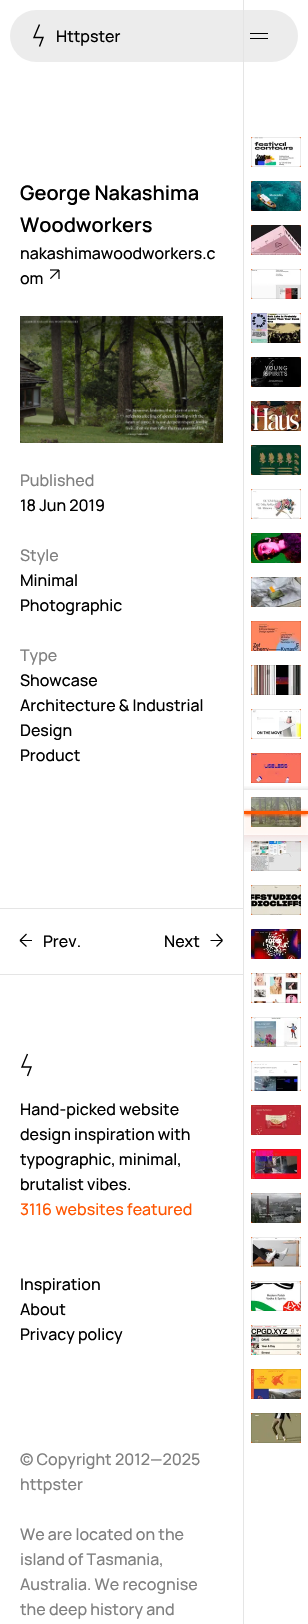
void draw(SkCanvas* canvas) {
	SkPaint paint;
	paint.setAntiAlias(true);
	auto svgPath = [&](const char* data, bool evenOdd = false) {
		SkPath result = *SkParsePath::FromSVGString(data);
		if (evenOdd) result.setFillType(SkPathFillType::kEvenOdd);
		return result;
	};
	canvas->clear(0xffffffff);
	paint.setColor(0xffe5e5e5);
	canvas->drawRect(SkRect::MakeXYWH(243, 0, 1, 1624), paint);
	paint.setColor(0xabe2e2e2);
	canvas->drawRoundRect(SkRect::MakeXYWH(10, 10, 288, 52), 26, 26, paint);
	paint.setStroke(true);
	paint.setStrokeWidth(1.4);
	paint.setColor(0xff000000);
	canvas->drawPath(svgPath("M39.5 24.5L34 37.5H43L39.5 46.5"), paint);
	SkFont f1(fontMgr->matchFamilyStyle("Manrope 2", SkFontStyle(200, SkFontStyle::kNormal_Width, SkFontStyle::kUpright_Slant)), 16);
	f1.setSubpixel(true);
	paint.setStroke(false);
	canvas->drawString("Httpster", 56, 42, f1, paint);
	canvas->drawRect(SkRect::MakeXYWH(250, 33, 18, 1), paint);
	canvas->drawRect(SkRect::MakeXYWH(250, 38, 18, 1), paint);
	SkFont f2(fontMgr->matchFamilyStyle("Manrope", SkFontStyle(200, SkFontStyle::kNormal_Width, SkFontStyle::kUpright_Slant)), 20);
	f2.setSubpixel(true);
	canvas->drawString("George Nakashima", 20, 200, f2, paint);
	canvas->drawString("Woodworkers", 20, 232, f2, paint);
	canvas->drawString("nakashimawoodworkers.c", 20, 259, f1, paint);
	canvas->drawImageRect(SkImages::DeferredFromEncodedData(SkData::MakeFromFileName("img1.png")), SkRect::MakeXYWH(50, 269, 10, 10), SkSamplingOptions());
	canvas->drawString("om", 20, 284, f1, paint);
	canvas->drawImageRect(SkImages::DeferredFromEncodedData(SkData::MakeFromFileName("img2.png")), SkRect::MakeXYWH(20, 316, 203, 127), SkSamplingOptions());
	paint.setStroke(true);
	paint.setStrokeWidth(1);
	paint.setColor(0x14000000);
	canvas->drawRect(SkRect::MakeXYWH(20.5, 316.5, 202, 126), paint);
	paint.setStroke(false);
	paint.setColor(0xff808080);
	canvas->drawString("Published", 20, 486, f1, paint);
	paint.setColor(0xff000000);
	canvas->drawString("18 Jun 2019", 20, 511, f1, paint);
	paint.setColor(0xff808080);
	canvas->drawString("Style", 20, 561, f1, paint);
	paint.setColor(0xff000000);
	canvas->drawString("Minimal", 20, 586, f1, paint);
	canvas->drawString("Photographic", 20, 611, f1, paint);
	paint.setColor(0xff808080);
	canvas->drawString("Type", 20, 661, f1, paint);
	paint.setColor(0xff000000);
	canvas->drawString("Showcase", 20, 686, f1, paint);
	canvas->drawString("Architecture & Industrial", 20, 711, f1, paint);
	canvas->drawString("Design", 20, 736, f1, paint);
	canvas->drawString("Product", 20, 761, f1, paint);
	paint.setColor(0xffff5601);
	canvas->drawRect(SkRect::MakeXYWH(251, 137, 50, 30), paint);
	canvas->drawImageRect(SkImages::DeferredFromEncodedData(SkData::MakeFromFileName("img3.png")), SkRect::MakeXYWH(251, 137, 50, 30), SkSamplingOptions());
	paint.setStroke(true);
	paint.setColor(0x14000000);
	canvas->drawRect(SkRect::MakeXYWH(251.5, 137.5, 49, 29), paint);
	paint.setStroke(false);
	paint.setColor(0xffff5601);
	canvas->drawRect(SkRect::MakeXYWH(251, 181, 50, 30), paint);
	canvas->drawImageRect(SkImages::DeferredFromEncodedData(SkData::MakeFromFileName("img4.png")), SkRect::MakeXYWH(251, 181, 50, 30), SkSamplingOptions());
	paint.setStroke(true);
	paint.setColor(0x14000000);
	canvas->drawRect(SkRect::MakeXYWH(251.5, 181.5, 49, 29), paint);
	paint.setStroke(false);
	paint.setColor(0xffff5601);
	canvas->drawRect(SkRect::MakeXYWH(251, 225, 50, 30), paint);
	canvas->drawImageRect(SkImages::DeferredFromEncodedData(SkData::MakeFromFileName("img5.png")), SkRect::MakeXYWH(251, 225, 50, 30), SkSamplingOptions());
	paint.setStroke(true);
	paint.setColor(0x14000000);
	canvas->drawRect(SkRect::MakeXYWH(251.5, 225.5, 49, 29), paint);
	paint.setStroke(false);
	paint.setColor(0xffff5601);
	canvas->drawRect(SkRect::MakeXYWH(251, 269, 50, 30), paint);
	canvas->drawImageRect(SkImages::DeferredFromEncodedData(SkData::MakeFromFileName("img6.png")), SkRect::MakeXYWH(251, 269, 50, 30), SkSamplingOptions());
	paint.setStroke(true);
	paint.setColor(0x14000000);
	canvas->drawRect(SkRect::MakeXYWH(251.5, 269.5, 49, 29), paint);
	paint.setStroke(false);
	paint.setColor(0xffff5601);
	canvas->drawRect(SkRect::MakeXYWH(251, 313, 50, 30), paint);
	canvas->drawImageRect(SkImages::DeferredFromEncodedData(SkData::MakeFromFileName("img7.png")), SkRect::MakeXYWH(251, 313, 50, 30), SkSamplingOptions());
	paint.setStroke(true);
	paint.setColor(0x14000000);
	canvas->drawRect(SkRect::MakeXYWH(251.5, 313.5, 49, 29), paint);
	paint.setStroke(false);
	paint.setColor(0xffff5601);
	canvas->drawRect(SkRect::MakeXYWH(251, 357, 50, 30), paint);
	canvas->drawImageRect(SkImages::DeferredFromEncodedData(SkData::MakeFromFileName("img8.png")), SkRect::MakeXYWH(251, 357, 50, 30), SkSamplingOptions());
	paint.setStroke(true);
	paint.setColor(0x14000000);
	canvas->drawRect(SkRect::MakeXYWH(251.5, 357.5, 49, 29), paint);
	paint.setStroke(false);
	paint.setColor(0xffff5601);
	canvas->drawRect(SkRect::MakeXYWH(251, 401, 50, 30), paint);
	canvas->drawImageRect(SkImages::DeferredFromEncodedData(SkData::MakeFromFileName("img9.png")), SkRect::MakeXYWH(251, 401, 50, 30), SkSamplingOptions());
	paint.setStroke(true);
	paint.setColor(0x14000000);
	canvas->drawRect(SkRect::MakeXYWH(251.5, 401.5, 49, 29), paint);
	paint.setStroke(false);
	paint.setColor(0xffff5601);
	canvas->drawRect(SkRect::MakeXYWH(251, 445, 50, 30), paint);
	canvas->drawImageRect(SkImages::DeferredFromEncodedData(SkData::MakeFromFileName("img10.png")), SkRect::MakeXYWH(251, 445, 50, 30), SkSamplingOptions());
	paint.setStroke(true);
	paint.setColor(0x14000000);
	canvas->drawRect(SkRect::MakeXYWH(251.5, 445.5, 49, 29), paint);
	paint.setStroke(false);
	paint.setColor(0xffff5601);
	canvas->drawRect(SkRect::MakeXYWH(251, 489, 50, 30), paint);
	canvas->drawImageRect(SkImages::DeferredFromEncodedData(SkData::MakeFromFileName("img11.png")), SkRect::MakeXYWH(251, 489, 50, 30), SkSamplingOptions());
	paint.setStroke(true);
	paint.setColor(0x14000000);
	canvas->drawRect(SkRect::MakeXYWH(251.5, 489.5, 49, 29), paint);
	paint.setStroke(false);
	paint.setColor(0xffff5601);
	canvas->drawRect(SkRect::MakeXYWH(251, 533, 50, 30), paint);
	canvas->drawImageRect(SkImages::DeferredFromEncodedData(SkData::MakeFromFileName("img12.png")), SkRect::MakeXYWH(251, 533, 50, 30), SkSamplingOptions());
	paint.setStroke(true);
	paint.setColor(0x14000000);
	canvas->drawRect(SkRect::MakeXYWH(251.5, 533.5, 49, 29), paint);
	paint.setStroke(false);
	paint.setColor(0xffff5601);
	canvas->drawRect(SkRect::MakeXYWH(251, 577, 50, 30), paint);
	canvas->drawImageRect(SkImages::DeferredFromEncodedData(SkData::MakeFromFileName("img13.png")), SkRect::MakeXYWH(251, 577, 50, 30), SkSamplingOptions());
	paint.setStroke(true);
	paint.setColor(0x14000000);
	canvas->drawRect(SkRect::MakeXYWH(251.5, 577.5, 49, 29), paint);
	paint.setStroke(false);
	paint.setColor(0xffff5601);
	canvas->drawRect(SkRect::MakeXYWH(251, 621, 50, 30), paint);
	canvas->drawImageRect(SkImages::DeferredFromEncodedData(SkData::MakeFromFileName("img14.png")), SkRect::MakeXYWH(251, 621, 50, 30), SkSamplingOptions());
	paint.setStroke(true);
	paint.setColor(0x14000000);
	canvas->drawRect(SkRect::MakeXYWH(251.5, 621.5, 49, 29), paint);
	paint.setStroke(false);
	paint.setColor(0xffff5601);
	canvas->drawRect(SkRect::MakeXYWH(251, 665, 50, 30), paint);
	canvas->drawImageRect(SkImages::DeferredFromEncodedData(SkData::MakeFromFileName("img15.png")), SkRect::MakeXYWH(251, 665, 50, 30), SkSamplingOptions());
	paint.setStroke(true);
	paint.setColor(0x14000000);
	canvas->drawRect(SkRect::MakeXYWH(251.5, 665.5, 49, 29), paint);
	paint.setStroke(false);
	paint.setColor(0xffff5601);
	canvas->drawRect(SkRect::MakeXYWH(251, 709, 50, 30), paint);
	canvas->drawImageRect(SkImages::DeferredFromEncodedData(SkData::MakeFromFileName("img16.png")), SkRect::MakeXYWH(251, 709, 50, 30), SkSamplingOptions());
	paint.setStroke(true);
	paint.setColor(0x14000000);
	canvas->drawRect(SkRect::MakeXYWH(251.5, 709.5, 49, 29), paint);
	paint.setStroke(false);
	paint.setColor(0xffff5601);
	canvas->drawRect(SkRect::MakeXYWH(251, 753, 50, 30), paint);
	canvas->drawImageRect(SkImages::DeferredFromEncodedData(SkData::MakeFromFileName("img17.png")), SkRect::MakeXYWH(251, 753, 50, 30), SkSamplingOptions());
	paint.setStroke(true);
	paint.setColor(0x14000000);
	canvas->drawRect(SkRect::MakeXYWH(251.5, 753.5, 49, 29), paint);
	paint.setStroke(false);
	paint.setColor(0xffff671a);
	canvas->drawRect(SkRect::MakeXYWH(251, 797, 50, 30), paint);
	canvas->drawImageRect(SkImages::DeferredFromEncodedData(SkData::MakeFromFileName("img18.png")), SkRect::MakeXYWH(251, 797, 50, 30), SkSamplingOptions());
	paint.setStroke(true);
	paint.setColor(0x141a1a1a);
	canvas->drawRect(SkRect::MakeXYWH(251.5, 797.5, 49, 29), paint);
	paint.setStroke(false);
	paint.setColor(0xffff5601);
	canvas->drawRect(SkRect::MakeXYWH(251, 841, 50, 30), paint);
	canvas->drawImageRect(SkImages::DeferredFromEncodedData(SkData::MakeFromFileName("img19.png")), SkRect::MakeXYWH(251, 841, 50, 30), SkSamplingOptions());
	paint.setStroke(true);
	paint.setColor(0x14000000);
	canvas->drawRect(SkRect::MakeXYWH(251.5, 841.5, 49, 29), paint);
	paint.setStroke(false);
	paint.setColor(0xffff5601);
	canvas->drawRect(SkRect::MakeXYWH(251, 885, 50, 30), paint);
	canvas->drawImageRect(SkImages::DeferredFromEncodedData(SkData::MakeFromFileName("img20.png")), SkRect::MakeXYWH(251, 885, 50, 30), SkSamplingOptions());
	paint.setStroke(true);
	paint.setColor(0x14000000);
	canvas->drawRect(SkRect::MakeXYWH(251.5, 885.5, 49, 29), paint);
	paint.setStroke(false);
	paint.setColor(0xffff5601);
	canvas->drawRect(SkRect::MakeXYWH(251, 929, 50, 30), paint);
	canvas->drawImageRect(SkImages::DeferredFromEncodedData(SkData::MakeFromFileName("img21.png")), SkRect::MakeXYWH(251, 929, 50, 30), SkSamplingOptions());
	paint.setStroke(true);
	paint.setColor(0x14000000);
	canvas->drawRect(SkRect::MakeXYWH(251.5, 929.5, 49, 29), paint);
	paint.setStroke(false);
	paint.setColor(0xffff5601);
	canvas->drawRect(SkRect::MakeXYWH(251, 973, 50, 30), paint);
	canvas->drawImageRect(SkImages::DeferredFromEncodedData(SkData::MakeFromFileName("img22.png")), SkRect::MakeXYWH(251, 973, 50, 30), SkSamplingOptions());
	paint.setStroke(true);
	paint.setColor(0x14000000);
	canvas->drawRect(SkRect::MakeXYWH(251.5, 973.5, 49, 29), paint);
	paint.setStroke(false);
	paint.setColor(0xffff5601);
	canvas->drawRect(SkRect::MakeXYWH(251, 1017, 50, 30), paint);
	canvas->drawImageRect(SkImages::DeferredFromEncodedData(SkData::MakeFromFileName("img23.png")), SkRect::MakeXYWH(251, 1017, 50, 30), SkSamplingOptions());
	paint.setStroke(true);
	paint.setColor(0x14000000);
	canvas->drawRect(SkRect::MakeXYWH(251.5, 1017.5, 49, 29), paint);
	paint.setStroke(false);
	paint.setColor(0xffff5601);
	canvas->drawRect(SkRect::MakeXYWH(251, 1061, 50, 30), paint);
	canvas->drawImageRect(SkImages::DeferredFromEncodedData(SkData::MakeFromFileName("img24.png")), SkRect::MakeXYWH(251, 1061, 50, 30), SkSamplingOptions());
	paint.setStroke(true);
	paint.setColor(0x14000000);
	canvas->drawRect(SkRect::MakeXYWH(251.5, 1061.5, 49, 29), paint);
	paint.setStroke(false);
	paint.setColor(0xffff5601);
	canvas->drawRect(SkRect::MakeXYWH(251, 1105, 50, 30), paint);
	canvas->drawImageRect(SkImages::DeferredFromEncodedData(SkData::MakeFromFileName("img25.png")), SkRect::MakeXYWH(251, 1105, 50, 30), SkSamplingOptions());
	paint.setStroke(true);
	paint.setColor(0x14000000);
	canvas->drawRect(SkRect::MakeXYWH(251.5, 1105.5, 49, 29), paint);
	paint.setStroke(false);
	paint.setColor(0xffff5601);
	canvas->drawRect(SkRect::MakeXYWH(251, 1149, 50, 30), paint);
	canvas->drawImageRect(SkImages::DeferredFromEncodedData(SkData::MakeFromFileName("img26.png")), SkRect::MakeXYWH(251, 1149, 50, 30), SkSamplingOptions());
	paint.setStroke(true);
	paint.setColor(0x14000000);
	canvas->drawRect(SkRect::MakeXYWH(251.5, 1149.5, 49, 29), paint);
	paint.setStroke(false);
	paint.setColor(0xffff5601);
	canvas->drawRect(SkRect::MakeXYWH(251, 1193, 50, 30), paint);
	canvas->drawImageRect(SkImages::DeferredFromEncodedData(SkData::MakeFromFileName("img27.png")), SkRect::MakeXYWH(251, 1193, 50, 30), SkSamplingOptions());
	paint.setStroke(true);
	paint.setColor(0x14000000);
	canvas->drawRect(SkRect::MakeXYWH(251.5, 1193.5, 49, 29), paint);
	paint.setStroke(false);
	paint.setColor(0xffff5601);
	canvas->drawRect(SkRect::MakeXYWH(251, 1237, 50, 30), paint);
	canvas->drawImageRect(SkImages::DeferredFromEncodedData(SkData::MakeFromFileName("img28.png")), SkRect::MakeXYWH(251, 1237, 50, 30), SkSamplingOptions());
	paint.setStroke(true);
	paint.setColor(0x14000000);
	canvas->drawRect(SkRect::MakeXYWH(251.5, 1237.5, 49, 29), paint);
	paint.setStroke(false);
	paint.setColor(0xffff5601);
	canvas->drawRect(SkRect::MakeXYWH(251, 1281, 50, 30), paint);
	canvas->drawImageRect(SkImages::DeferredFromEncodedData(SkData::MakeFromFileName("img29.png")), SkRect::MakeXYWH(251, 1281, 50, 30), SkSamplingOptions());
	paint.setStroke(true);
	paint.setColor(0x14000000);
	canvas->drawRect(SkRect::MakeXYWH(251.5, 1281.5, 49, 29), paint);
	paint.setStroke(false);
	paint.setColor(0xffff5601);
	canvas->drawRect(SkRect::MakeXYWH(251, 1325, 50, 30), paint);
	canvas->drawImageRect(SkImages::DeferredFromEncodedData(SkData::MakeFromFileName("img30.png")), SkRect::MakeXYWH(251, 1325, 50, 30), SkSamplingOptions());
	paint.setStroke(true);
	paint.setColor(0x14000000);
	canvas->drawRect(SkRect::MakeXYWH(251.5, 1325.5, 49, 29), paint);
	paint.setStroke(false);
	paint.setColor(0xffff5601);
	canvas->drawRect(SkRect::MakeXYWH(251, 1369, 50, 30), paint);
	canvas->drawImageRect(SkImages::DeferredFromEncodedData(SkData::MakeFromFileName("img31.png")), SkRect::MakeXYWH(251, 1369, 50, 30), SkSamplingOptions());
	paint.setStroke(true);
	paint.setColor(0x14000000);
	canvas->drawRect(SkRect::MakeXYWH(251.5, 1369.5, 49, 29), paint);
	paint.setStroke(false);
	paint.setColor(0xffff5601);
	canvas->drawRect(SkRect::MakeXYWH(251, 1413, 50, 30), paint);
	canvas->drawImageRect(SkImages::DeferredFromEncodedData(SkData::MakeFromFileName("img32.png")), SkRect::MakeXYWH(251, 1413, 50, 30), SkSamplingOptions());
	paint.setStroke(true);
	paint.setColor(0x14000000);
	canvas->drawRect(SkRect::MakeXYWH(251.5, 1413.5, 49, 29), paint);
	canvas->drawImageRect(SkImages::DeferredFromEncodedData(SkData::MakeFromFileName("img33.png")), SkRect::MakeXYWH(244, 786, 64, 66), SkSamplingOptions());
	paint.setStroke(false);
	paint.setColor(0xffe5e5e5);
	canvas->drawRect(SkRect::MakeXYWH(0, 908, 243, 1), paint);
	paint.setColor(0xff000000);
	canvas->drawString("Prev.", 43, 947, f1, paint);
	paint.setStroke(true);
	paint.setStrokeWidth(1.2);
	canvas->drawPath(svgPath("M26.5 934L20 940.5M20 940.5L26.5 946.5M20 940.5H32"), paint);
	paint.setStroke(false);
	canvas->drawString("Next", 164, 947, f1, paint);
	paint.setStroke(true);
	canvas->drawPath(svgPath("M216.5 934L222.5 940.5M222.5 940.5L216.5 946.5M222.5 940.5H210.5"), paint);
	paint.setStroke(false);
	paint.setColor(0xffe5e5e5);
	canvas->drawRect(SkRect::MakeXYWH(0, 974, 243, 1), paint);
	paint.setStroke(true);
	paint.setStrokeWidth(1.4);
	paint.setColor(0xff000000);
	canvas->drawPath(svgPath("M27.5 1054L22 1067H31L27.5 1076"), paint);
	paint.setStroke(false);
	canvas->drawString("Hand-picked website", 20, 1115, f1, paint);
	canvas->drawString("design inspiration with", 20, 1140, f1, paint);
	canvas->drawString("typographic, minimal,", 20, 1165, f1, paint);
	canvas->drawString("brutalist vibes.", 20, 1190, f1, paint);
	paint.setColor(0xffff5601);
	canvas->drawString("3116 websites featured", 20, 1215, f1, paint);
	paint.setColor(0xff000000);
	canvas->drawString("Inspiration", 20, 1290, f1, paint);
	canvas->drawString("About", 20, 1315, f1, paint);
	canvas->drawString("Privacy policy", 20, 1340, f1, paint);
	paint.setColor(0xff808080);
	canvas->drawString("© Copyright 2012—2025", 20, 1465, f1, paint);
	canvas->drawString("httpster", 20, 1490, f1, paint);
	canvas->drawString("We are located on the", 20, 1540, f1, paint);
	canvas->drawString("island of Tasmania,", 20, 1565, f1, paint);
	canvas->drawString("Australia. We recognise", 20, 1590, f1, paint);
	canvas->drawString("the deep history and", 20, 1615, f1, paint);
}
